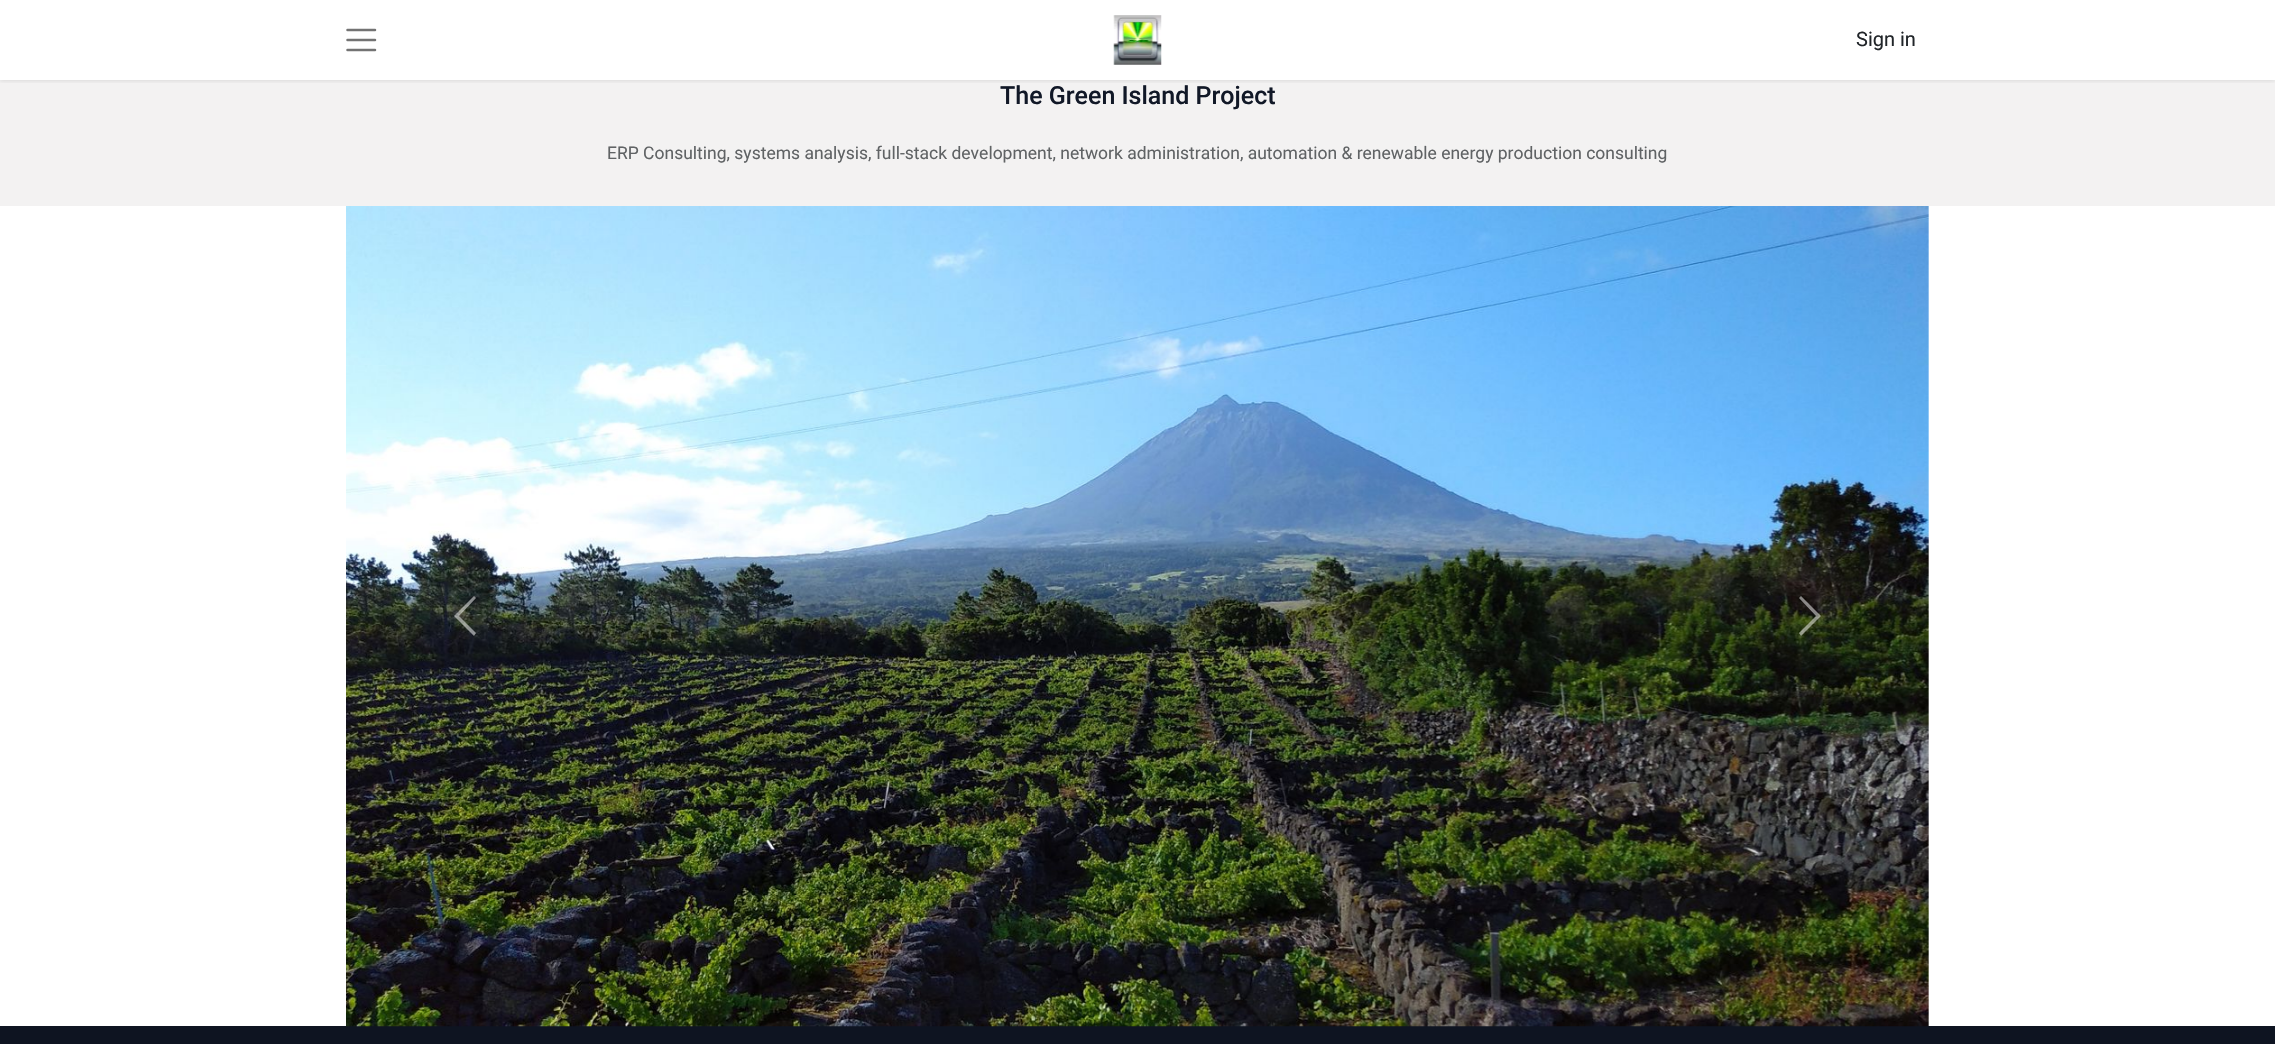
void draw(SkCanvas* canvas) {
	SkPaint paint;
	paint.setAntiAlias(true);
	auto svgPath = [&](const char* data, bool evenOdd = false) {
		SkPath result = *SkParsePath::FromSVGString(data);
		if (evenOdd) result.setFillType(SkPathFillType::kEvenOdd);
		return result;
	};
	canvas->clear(0xffffffff);
	paint.setColor(0xfff3f2f2);
	canvas->drawRect(SkRect::MakeXYWH(0, 80, 2275, 126), paint);
	canvas->save();
	canvas->clipRect(SkRect::MakeXYWH(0, 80, 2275, 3));
	paint.setColor(0x1a000000);
	paint.setMaskFilter(SkMaskFilter::MakeBlur(kNormal_SkBlurStyle, 2));
	canvas->drawRect(SkRect::MakeXYWH(0, 1, 2275, 80), paint);
	paint.setMaskFilter(nullptr);
	canvas->restore();
	paint.setStroke(true);
	paint.setStrokeWidth(2.5);
	paint.setStrokeCap(SkPaint::kRound_Cap);
	paint.setColor(0xff737373);
	canvas->drawPath(svgPath("M347.5 30H375M347.5 40H375M347.5 50H375"), paint);
	canvas->drawImageRect(SkImages::DeferredFromEncodedData(SkData::MakeFromFileName("img1.png")), SkRect::MakeXYWH(1113, 15, 49, 50), SkSamplingOptions());
	SkFont f1(fontMgr->matchFamilyStyle("Roboto", SkFontStyle::Normal()), 20);
	f1.setSubpixel(true);
	paint.setStroke(false);
	paint.setColor(0xff212529);
	canvas->drawString("Sign in", 1856, 46, f1, paint);
	SkFont f2(fontMgr->matchFamilyStyle("Roboto", SkFontStyle(500, SkFontStyle::kNormal_Width, SkFontStyle::kUpright_Slant)), 25);
	f2.setSubpixel(true);
	paint.setColor(0xff111827);
	canvas->drawString("The Green Island Project", 1000, 104, f2, paint);
	SkFont f3(fontMgr->matchFamilyStyle("Roboto", SkFontStyle::Normal()), 17.5);
	f3.setSubpixel(true);
	paint.setColor(0xff606365);
	canvas->drawString("ERP Consulting, systems analysis, full-stack development, network administration, automation & renewable energy production consulting", 607, 159, f3, paint);
	paint.setColor(0xff0e1421);
	canvas->drawRect(SkRect::MakeXYWH(0, 1026, 2275, 18), paint);
	canvas->drawImageRect(SkImages::DeferredFromEncodedData(SkData::MakeFromFileName("img2.png")), SkRect::MakeXYWH(346, 206, 1583, 821), SkSamplingOptions());
	paint.setColor(0x80ffffff);
	canvas->drawPath(svgPath("M454 616L474 596L476 598L459 616L476 633L474 636Z"), paint);
	canvas->drawPath(svgPath("M1821 616L1801 636L1799 633L1816 616L1799 598L1801 596Z"), paint);
}
